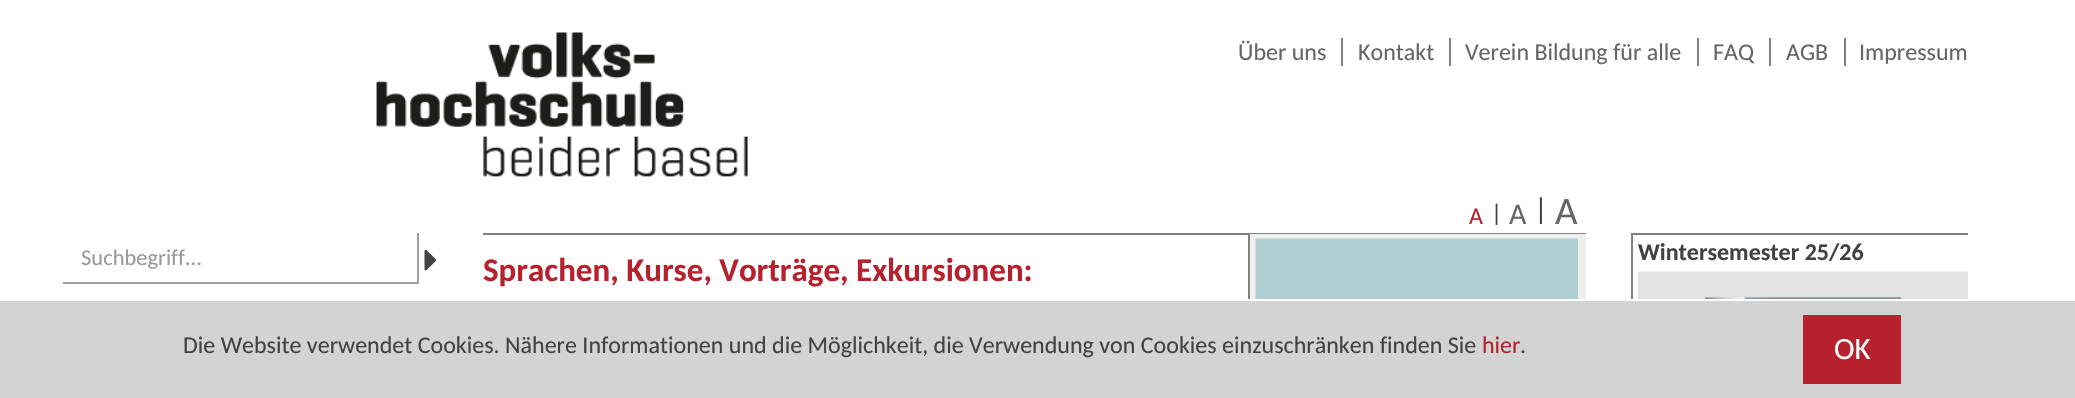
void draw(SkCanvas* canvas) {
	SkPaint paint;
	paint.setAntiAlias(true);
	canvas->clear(0xffffffff);
	canvas->drawImageRect(SkImages::DeferredFromEncodedData(SkData::MakeFromFileName("img1.png")), SkRect::MakeXYWH(376, 32, 372, 145), SkSamplingOptions());
	paint.setColor(0xff808080);
	canvas->drawRect(SkRect::MakeXYWH(1341, 38, 2, 28), paint);
	SkFont f1(fontMgr->matchFamilyStyle("Carlito", SkFontStyle::Normal()), 24);
	f1.setSubpixel(true);
	paint.setColor(0xff666666);
	canvas->drawString("Über uns", 1238, 60, f1, paint);
	paint.setColor(0xff808080);
	canvas->drawRect(SkRect::MakeXYWH(1449, 38, 2, 28), paint);
	paint.setColor(0xff666666);
	canvas->drawString("Kontakt", 1358, 60, f1, paint);
	paint.setColor(0xff808080);
	canvas->drawRect(SkRect::MakeXYWH(1697, 38, 2, 28), paint);
	paint.setColor(0xff666666);
	canvas->drawString("Verein Bildung für alle", 1465, 60, f1, paint);
	paint.setColor(0xff808080);
	canvas->drawRect(SkRect::MakeXYWH(1769, 38, 2, 28), paint);
	paint.setColor(0xff666666);
	canvas->drawString("FAQ", 1713, 60, f1, paint);
	paint.setColor(0xff808080);
	canvas->drawRect(SkRect::MakeXYWH(1844, 38, 2, 28), paint);
	paint.setColor(0xff666666);
	canvas->drawString("AGB", 1786, 60, f1, paint);
	canvas->drawString("Impressum", 1859, 60, f1, paint);
	paint.setColor(0xff9f9f9f);
	canvas->drawRect(SkRect::MakeXYWH(417, 233, 2, 51), paint);
	canvas->drawRect(SkRect::MakeXYWH(63, 282, 356, 2), paint);
	SkFont f2(fontMgr->matchFamilyStyle("Carlito", SkFontStyle::Normal()), 22.5);
	f2.setSubpixel(true);
	paint.setColor(0xff999999);
	canvas->drawString("Suchbegriff...", 81, 265, f2, paint);
	canvas->drawImageRect(SkImages::DeferredFromEncodedData(SkData::MakeFromFileName("img2.png")), SkRect::MakeXYWH(424, 249, 12, 22), SkSamplingOptions());
	paint.setColor(0xffb7212d);
	canvas->drawString("A", 1469, 224, f1, paint);
	paint.setColor(0xff424242);
	canvas->drawString("|", 1491, 221, f1, paint);
	SkFont f3(fontMgr->matchFamilyStyle("Carlito", SkFontStyle::Normal()), 30);
	f3.setSubpixel(true);
	paint.setColor(0xff666666);
	canvas->drawString("A", 1509, 224, f3, paint);
	paint.setColor(0xff424242);
	canvas->drawString("|", 1534, 219, f3, paint);
	SkFont f4(fontMgr->matchFamilyStyle("Carlito", SkFontStyle::Normal()), 39);
	f4.setSubpixel(true);
	paint.setColor(0xff666666);
	canvas->drawString("A", 1555, 224, f4, paint);
	paint.setColor(0xff808080);
	canvas->drawRect(SkRect::MakeXYWH(483, 233, 1103, 2), paint);
	SkFont f5(fontMgr->matchFamilyStyle("Carlito", SkFontStyle::Bold()), 33);
	f5.setSubpixel(true);
	paint.setColor(0xffb7212d);
	canvas->drawString("Sprachen, Kurse, Vorträge, Exkursionen:", 483, 281, f5, paint);
	paint.setColor(0xfff1efec);
	canvas->drawRect(SkRect::MakeXYWH(1250, 234, 336, 65), paint);
	paint.setColor(0xff808080);
	canvas->drawRect(SkRect::MakeXYWH(1248, 234, 2, 65), paint);
	canvas->drawImageRect(SkImages::DeferredFromEncodedData(SkData::MakeFromFileName("img3.png")), SkRect::MakeXYWH(1255, 238, 323, 61), SkSamplingOptions());
	canvas->drawRect(SkRect::MakeXYWH(1631, 233, 337, 2), paint);
	canvas->drawRect(SkRect::MakeXYWH(1631, 233, 2, 66), paint);
	SkFont f6(fontMgr->matchFamilyStyle("Carlito", SkFontStyle::Bold()), 24);
	f6.setSubpixel(true);
	paint.setColor(0xff424242);
	canvas->drawString("Wintersemester 25/26", 1638, 260, f6, paint);
	canvas->drawImageRect(SkImages::DeferredFromEncodedData(SkData::MakeFromFileName("img4.png")), SkRect::MakeXYWH(1638, 271, 330, 28), SkSamplingOptions());
	paint.setColor(0xffd3d3d3);
	canvas->drawRect(SkRect::MakeXYWH(0, 301, 2075, 97), paint);
	paint.setColor(0xff424242);
	canvas->drawString("Die Website verwendet Cookies. Nähere Informationen und die Möglichkeit, die Verwendung von Cookies einzuschränken finden Sie", 183, 353, f1, paint);
	paint.setColor(0xffb7212d);
	canvas->drawString("hier", 1482, 353, f1, paint);
	paint.setColor(0xff424242);
	canvas->drawString(".", 1520, 353, f1, paint);
	paint.setColor(0xffb7212d);
	canvas->drawRect(SkRect::MakeXYWH(1803, 315, 98, 69), paint);
	SkFont f7(fontMgr->matchFamilyStyle("Carlito", SkFontStyle::Normal()), 31);
	f7.setSubpixel(true);
	paint.setColor(0xffffffff);
	canvas->drawString("OK", 1834, 359, f7, paint);
}
